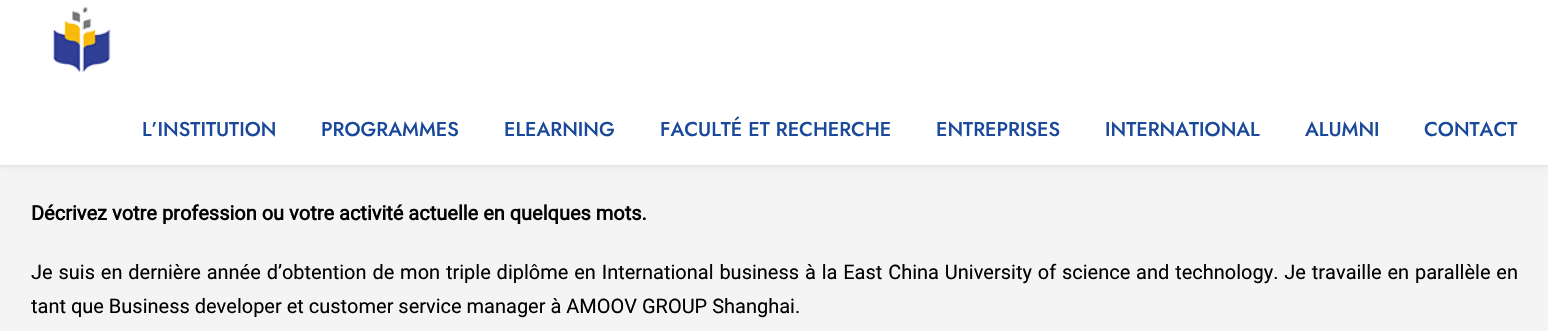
void draw(SkCanvas* canvas) {
	SkPaint paint;
	paint.setAntiAlias(true);
	auto spacedText = [&](const char* s, float x, float y, const SkFont& font, const SkPaint& ink, float letter, float word) {
		std::vector<SkGlyphID> glyphs(font.countText(s, strlen(s), SkTextEncoding::kUTF8));
		std::vector<float> xs(glyphs.size());
		font.textToGlyphs(s, strlen(s), SkTextEncoding::kUTF8, glyphs);
		font.getXPos(glyphs, xs, x);
		float extra = 0;
		for (size_t i = 0; i < glyphs.size(); i++) {
			xs[i] += extra;
			extra += letter + word * (glyphs[i] == font.unicharToGlyph(' '));
		}
		canvas->drawTextBlob(SkTextBlob::MakeFromPosHGlyphs(glyphs, xs, y, font), 0, 0, ink);
	};
	canvas->clear(0xfff4f4f4);
	paint.setColor(0x1a000000);
	paint.setMaskFilter(SkMaskFilter::MakeBlur(kNormal_SkBlurStyle, 2.5));
	canvas->drawRect(SkRect::MakeXYWH(0, 1, 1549, 165), paint);
	paint.setMaskFilter(nullptr);
	paint.setColor(0xffffffff);
	canvas->drawRect(SkRect::MakeXYWH(0, 0, 1548, 165), paint);
	canvas->drawImageRect(SkImages::DeferredFromEncodedData(SkData::MakeFromFileName("img1.png")), SkRect::MakeXYWH(53, 7, 58, 66), SkSamplingOptions());
	SkFont f1(fontMgr->matchFamilyStyle("Jost", SkFontStyle(500, SkFontStyle::kNormal_Width, SkFontStyle::kUpright_Slant)), 20);
	f1.setSubpixel(true);
	paint.setColor(0xff1a499b);
	canvas->drawString("L’INSTITUTION", 142, 136, f1, paint);
	canvas->drawString("PROGRAMMES", 321, 136, f1, paint);
	canvas->drawString("ELEARNING", 504, 136, f1, paint);
	canvas->drawString("FACULTÉ ET RECHERCHE", 660, 136, f1, paint);
	canvas->drawString("ENTREPRISES", 936, 136, f1, paint);
	canvas->drawString("INTERNATIONAL", 1105, 136, f1, paint);
	canvas->drawString("ALUMNI", 1305, 136, f1, paint);
	canvas->drawString("CONTACT", 1424, 136, f1, paint);
	SkFont f2(fontMgr->matchFamilyStyle("Roboto", SkFontStyle::Bold()), 20);
	f2.setSubpixel(true);
	paint.setColor(0xff000000);
	canvas->drawString("Décrivez votre profession ou votre activité actuelle en quelques mots.", 31, 220, f2, paint);
	SkFont f3(fontMgr->matchFamilyStyle("Roboto", SkFontStyle::Normal()), 20);
	f3.setSubpixel(true);
	spacedText("Je suis en dernière année d’obtention de mon triple diplôme en International business à la East China University of science and technology. Je travaille en parallèle en", 31, 279, f3, paint, 0, 0.9);
	canvas->drawString("tant que Business developer et customer service manager à AMOOV GROUP Shanghai.", 31, 313, f3, paint);
}
